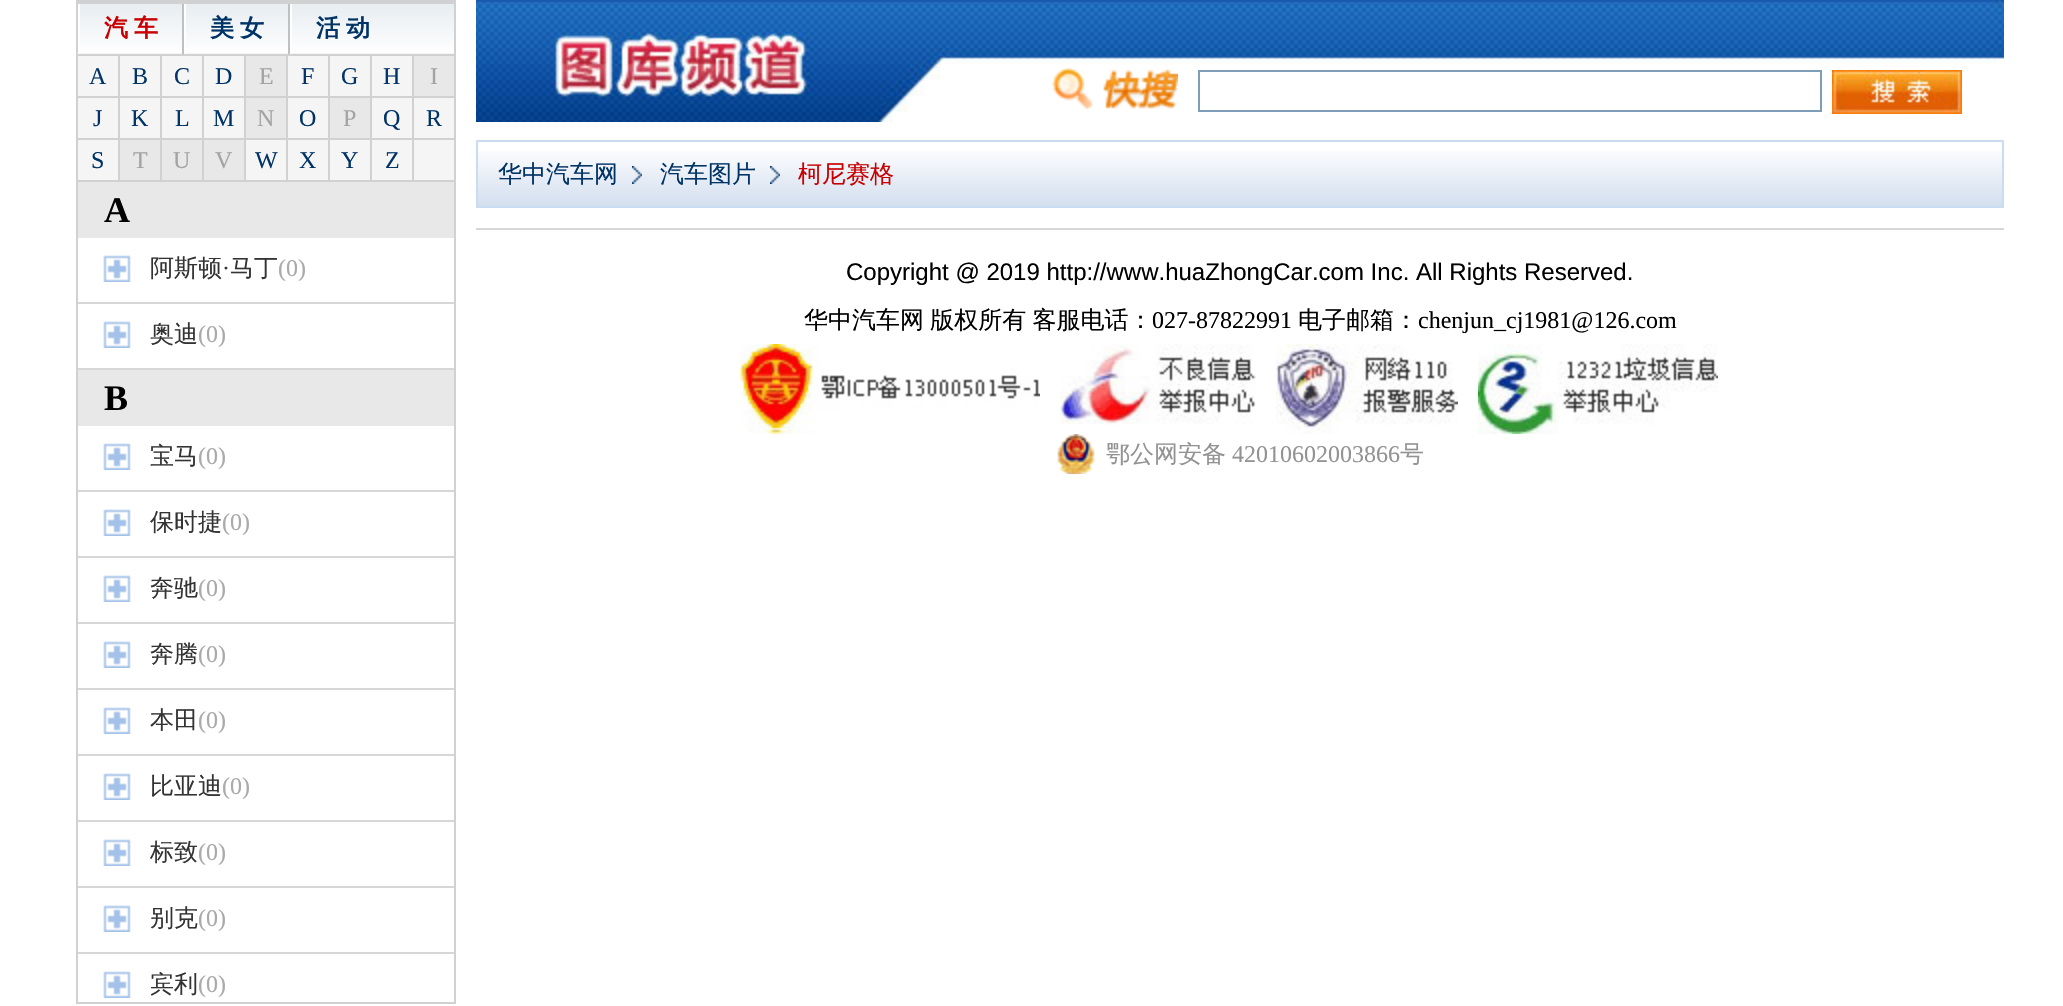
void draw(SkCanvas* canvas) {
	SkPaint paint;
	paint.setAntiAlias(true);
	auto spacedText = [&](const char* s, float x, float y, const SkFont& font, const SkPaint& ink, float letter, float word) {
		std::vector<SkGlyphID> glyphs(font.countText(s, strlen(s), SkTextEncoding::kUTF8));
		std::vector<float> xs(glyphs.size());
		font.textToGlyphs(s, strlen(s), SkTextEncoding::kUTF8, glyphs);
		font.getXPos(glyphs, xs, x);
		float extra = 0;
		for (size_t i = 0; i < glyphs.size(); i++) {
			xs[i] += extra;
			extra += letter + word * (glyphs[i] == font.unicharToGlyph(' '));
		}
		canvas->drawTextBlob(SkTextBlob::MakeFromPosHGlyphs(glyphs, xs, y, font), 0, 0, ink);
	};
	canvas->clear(0xffffffff);
	paint.setStroke(true);
	paint.setStrokeWidth(2);
	paint.setColor(0xffd1d1d1);
	canvas->drawRect(SkRect::MakeXYWH(77, 1, 378, 1002), paint);
	canvas->drawImageRect(SkImages::DeferredFromEncodedData(SkData::MakeFromFileName("img1.png")), SkRect::MakeXYWH(80, 4, 374, 50), SkSamplingOptions());
	paint.setStroke(false);
	canvas->drawRect(SkRect::MakeXYWH(78, 2, 376, 2), paint);
	paint.setColor(0xffbdc1c4);
	canvas->drawRect(SkRect::MakeXYWH(182, 4, 2, 50), paint);
	SkFont f1(fontMgr->matchFamilyStyle("WenQuanYi Zen Hei", SkFontStyle::Bold()), 24);
	f1.setSubpixel(true);
	paint.setColor(0xffc80000);
	canvas->drawString("汽", 104, 36, f1, paint);
	canvas->drawString("车", 134, 36, f1, paint);
	paint.setColor(0xffbdc1c4);
	canvas->drawRect(SkRect::MakeXYWH(288, 4, 2, 50), paint);
	paint.setColor(0xffffffff);
	canvas->drawRect(SkRect::MakeXYWH(184, 4, 2, 50), paint);
	paint.setColor(0xff003366);
	canvas->drawString("美", 210, 36, f1, paint);
	canvas->drawString("女", 240, 36, f1, paint);
	paint.setColor(0xffffffff);
	canvas->drawRect(SkRect::MakeXYWH(290, 4, 2, 50), paint);
	paint.setColor(0xff003366);
	canvas->drawString("活", 316, 36, f1, paint);
	canvas->drawString("动", 346, 36, f1, paint);
	paint.setColor(0xfff5f5f5);
	canvas->drawRect(SkRect::MakeXYWH(78, 56, 376, 124), paint);
	paint.setColor(0xffd1d1d1);
	canvas->drawRect(SkRect::MakeXYWH(78, 54, 376, 2), paint);
	canvas->drawRect(SkRect::MakeXYWH(78, 180, 376, 2), paint);
	SkFont f2(fontMgr->matchFamilyStyle("Liberation Serif", SkFontStyle::Normal()), 24);
	f2.setSubpixel(true);
	paint.setColor(0xff003366);
	canvas->drawString("A", 89, 84, f2, paint);
	canvas->save();
	canvas->clipRect(SkRect::MakeXYWH(78, 56, 376, 124));
	paint.setStroke(true);
	paint.setColor(0xffd1d1d1);
	canvas->drawRect(SkRect::MakeXYWH(119, 55, 42, 42), paint);
	canvas->restore();
	paint.setStroke(false);
	paint.setColor(0xff003366);
	canvas->drawString("B", 132, 84, f2, paint);
	canvas->save();
	canvas->clipRect(SkRect::MakeXYWH(78, 56, 376, 124));
	paint.setStroke(true);
	paint.setColor(0xffd1d1d1);
	canvas->drawRect(SkRect::MakeXYWH(161, 55, 42, 42), paint);
	canvas->restore();
	paint.setStroke(false);
	paint.setColor(0xff003366);
	canvas->drawString("C", 174, 84, f2, paint);
	canvas->save();
	canvas->clipRect(SkRect::MakeXYWH(78, 56, 376, 124));
	paint.setStroke(true);
	paint.setColor(0xffd1d1d1);
	canvas->drawRect(SkRect::MakeXYWH(203, 55, 42, 42), paint);
	canvas->restore();
	paint.setStroke(false);
	paint.setColor(0xff003366);
	canvas->drawString("D", 215, 84, f2, paint);
	paint.setColor(0xffe8e8e8);
	canvas->drawRect(SkRect::MakeXYWH(246, 56, 40, 40), paint);
	canvas->save();
	canvas->clipRect(SkRect::MakeXYWH(78, 56, 376, 124));
	paint.setStroke(true);
	paint.setColor(0xffd1d1d1);
	canvas->drawRect(SkRect::MakeXYWH(245, 55, 42, 42), paint);
	canvas->restore();
	paint.setStroke(false);
	paint.setColor(0xffa3a3a3);
	canvas->drawString("E", 259, 84, f2, paint);
	canvas->save();
	canvas->clipRect(SkRect::MakeXYWH(78, 56, 376, 124));
	paint.setStroke(true);
	paint.setColor(0xffd1d1d1);
	canvas->drawRect(SkRect::MakeXYWH(287, 55, 42, 42), paint);
	canvas->restore();
	paint.setStroke(false);
	paint.setColor(0xff003366);
	canvas->drawString("F", 301, 84, f2, paint);
	canvas->save();
	canvas->clipRect(SkRect::MakeXYWH(78, 56, 376, 124));
	paint.setStroke(true);
	paint.setColor(0xffd1d1d1);
	canvas->drawRect(SkRect::MakeXYWH(329, 55, 42, 42), paint);
	canvas->restore();
	paint.setStroke(false);
	paint.setColor(0xff003366);
	canvas->drawString("G", 341, 84, f2, paint);
	canvas->save();
	canvas->clipRect(SkRect::MakeXYWH(78, 56, 376, 124));
	paint.setStroke(true);
	paint.setColor(0xffd1d1d1);
	canvas->drawRect(SkRect::MakeXYWH(371, 55, 42, 42), paint);
	canvas->restore();
	paint.setStroke(false);
	paint.setColor(0xff003366);
	canvas->drawString("H", 383, 84, f2, paint);
	paint.setColor(0xffe8e8e8);
	canvas->drawRect(SkRect::MakeXYWH(414, 56, 40, 40), paint);
	canvas->save();
	canvas->clipRect(SkRect::MakeXYWH(78, 56, 376, 124));
	paint.setStroke(true);
	paint.setColor(0xffd1d1d1);
	canvas->drawRect(SkRect::MakeXYWH(413, 55, 42, 42), paint);
	canvas->restore();
	paint.setStroke(false);
	paint.setColor(0xffa3a3a3);
	canvas->drawString("I", 430, 84, f2, paint);
	canvas->save();
	canvas->clipRect(SkRect::MakeXYWH(78, 56, 376, 124));
	paint.setStroke(true);
	paint.setColor(0xffd1d1d1);
	canvas->drawRect(SkRect::MakeXYWH(77, 97, 42, 42), paint);
	canvas->restore();
	paint.setStroke(false);
	paint.setColor(0xff003366);
	canvas->drawString("J", 93, 126, f2, paint);
	paint.setStroke(true);
	paint.setColor(0xffd1d1d1);
	canvas->drawRect(SkRect::MakeXYWH(119, 97, 42, 42), paint);
	paint.setStroke(false);
	paint.setColor(0xff003366);
	canvas->drawString("K", 131, 126, f2, paint);
	paint.setStroke(true);
	paint.setColor(0xffd1d1d1);
	canvas->drawRect(SkRect::MakeXYWH(161, 97, 42, 42), paint);
	paint.setStroke(false);
	paint.setColor(0xff003366);
	canvas->drawString("L", 175, 126, f2, paint);
	paint.setStroke(true);
	paint.setColor(0xffd1d1d1);
	canvas->drawRect(SkRect::MakeXYWH(203, 97, 42, 42), paint);
	paint.setStroke(false);
	paint.setColor(0xff003366);
	canvas->drawString("M", 213, 126, f2, paint);
	paint.setColor(0xffe8e8e8);
	canvas->drawRect(SkRect::MakeXYWH(245, 97, 42, 42), paint);
	paint.setStroke(true);
	paint.setColor(0xffd1d1d1);
	canvas->drawRect(SkRect::MakeXYWH(245, 97, 42, 42), paint);
	paint.setStroke(false);
	paint.setColor(0xffa3a3a3);
	canvas->drawString("N", 257, 126, f2, paint);
	paint.setStroke(true);
	paint.setColor(0xffd1d1d1);
	canvas->drawRect(SkRect::MakeXYWH(287, 97, 42, 42), paint);
	paint.setStroke(false);
	paint.setColor(0xff003366);
	canvas->drawString("O", 299, 126, f2, paint);
	paint.setColor(0xffe8e8e8);
	canvas->drawRect(SkRect::MakeXYWH(329, 97, 42, 42), paint);
	paint.setStroke(true);
	paint.setColor(0xffd1d1d1);
	canvas->drawRect(SkRect::MakeXYWH(329, 97, 42, 42), paint);
	paint.setStroke(false);
	paint.setColor(0xffa3a3a3);
	canvas->drawString("P", 343, 126, f2, paint);
	paint.setStroke(true);
	paint.setColor(0xffd1d1d1);
	canvas->drawRect(SkRect::MakeXYWH(371, 97, 42, 42), paint);
	paint.setStroke(false);
	paint.setColor(0xff003366);
	canvas->drawString("Q", 383, 126, f2, paint);
	canvas->save();
	canvas->clipRect(SkRect::MakeXYWH(78, 56, 376, 124));
	paint.setStroke(true);
	paint.setColor(0xffd1d1d1);
	canvas->drawRect(SkRect::MakeXYWH(413, 97, 42, 42), paint);
	canvas->restore();
	paint.setStroke(false);
	paint.setColor(0xff003366);
	canvas->drawString("R", 426, 126, f2, paint);
	canvas->save();
	canvas->clipRect(SkRect::MakeXYWH(78, 56, 376, 124));
	paint.setStroke(true);
	paint.setColor(0xffd1d1d1);
	canvas->drawRect(SkRect::MakeXYWH(77, 139, 42, 42), paint);
	canvas->restore();
	paint.setStroke(false);
	paint.setColor(0xff003366);
	canvas->drawString("S", 91, 168, f2, paint);
	paint.setColor(0xffe8e8e8);
	canvas->drawRect(SkRect::MakeXYWH(120, 140, 40, 40), paint);
	canvas->save();
	canvas->clipRect(SkRect::MakeXYWH(78, 56, 376, 124));
	paint.setStroke(true);
	paint.setColor(0xffd1d1d1);
	canvas->drawRect(SkRect::MakeXYWH(119, 139, 42, 42), paint);
	canvas->restore();
	paint.setStroke(false);
	paint.setColor(0xffa3a3a3);
	canvas->drawString("T", 133, 168, f2, paint);
	paint.setColor(0xffe8e8e8);
	canvas->drawRect(SkRect::MakeXYWH(162, 140, 40, 40), paint);
	canvas->save();
	canvas->clipRect(SkRect::MakeXYWH(78, 56, 376, 124));
	paint.setStroke(true);
	paint.setColor(0xffd1d1d1);
	canvas->drawRect(SkRect::MakeXYWH(161, 139, 42, 42), paint);
	canvas->restore();
	paint.setStroke(false);
	paint.setColor(0xffa3a3a3);
	canvas->drawString("U", 173, 168, f2, paint);
	paint.setColor(0xffe8e8e8);
	canvas->drawRect(SkRect::MakeXYWH(204, 140, 40, 40), paint);
	canvas->save();
	canvas->clipRect(SkRect::MakeXYWH(78, 56, 376, 124));
	paint.setStroke(true);
	paint.setColor(0xffd1d1d1);
	canvas->drawRect(SkRect::MakeXYWH(203, 139, 42, 42), paint);
	canvas->restore();
	paint.setStroke(false);
	paint.setColor(0xffa3a3a3);
	canvas->drawString("V", 215, 168, f2, paint);
	canvas->save();
	canvas->clipRect(SkRect::MakeXYWH(78, 56, 376, 124));
	paint.setStroke(true);
	paint.setColor(0xffd1d1d1);
	canvas->drawRect(SkRect::MakeXYWH(245, 139, 42, 42), paint);
	canvas->restore();
	paint.setStroke(false);
	paint.setColor(0xff003366);
	canvas->drawString("W", 255, 168, f2, paint);
	canvas->save();
	canvas->clipRect(SkRect::MakeXYWH(78, 56, 376, 124));
	paint.setStroke(true);
	paint.setColor(0xffd1d1d1);
	canvas->drawRect(SkRect::MakeXYWH(287, 139, 42, 42), paint);
	canvas->restore();
	paint.setStroke(false);
	paint.setColor(0xff003366);
	canvas->drawString("X", 299, 168, f2, paint);
	canvas->save();
	canvas->clipRect(SkRect::MakeXYWH(78, 56, 376, 124));
	paint.setStroke(true);
	paint.setColor(0xffd1d1d1);
	canvas->drawRect(SkRect::MakeXYWH(329, 139, 42, 42), paint);
	canvas->restore();
	paint.setStroke(false);
	paint.setColor(0xff003366);
	canvas->drawString("Y", 341, 168, f2, paint);
	canvas->save();
	canvas->clipRect(SkRect::MakeXYWH(78, 56, 376, 124));
	paint.setStroke(true);
	paint.setColor(0xffd1d1d1);
	canvas->drawRect(SkRect::MakeXYWH(371, 139, 42, 42), paint);
	canvas->restore();
	paint.setStroke(false);
	paint.setColor(0xff003366);
	canvas->drawString("Z", 385, 168, f2, paint);
	paint.setColor(0xffe8e8e8);
	canvas->drawRect(SkRect::MakeXYWH(78, 182, 376, 56), paint);
	SkFont f3(fontMgr->matchFamilyStyle("Liberation Serif", SkFontStyle::Bold()), 36);
	f3.setSubpixel(true);
	paint.setColor(0xff000000);
	canvas->drawString("A", 104, 222, f3, paint);
	paint.setColor(0xffd7d7d7);
	canvas->drawRect(SkRect::MakeXYWH(78, 302, 376, 2), paint);
	canvas->drawImageRect(SkImages::DeferredFromEncodedData(SkData::MakeFromFileName("img2.png")), SkRect::MakeXYWH(103, 255, 28, 27), SkSamplingOptions());
	SkFont f4(fontMgr->matchFamilyStyle("WenQuanYi Zen Hei", SkFontStyle(500, SkFontStyle::kNormal_Width, SkFontStyle::kUpright_Slant)), 24);
	f4.setSubpixel(true);
	paint.setColor(0xff333333);
	canvas->drawString("阿斯顿", 150, 276, f4, paint);
	canvas->drawString("·", 222, 276, f2, paint);
	canvas->drawString("马丁", 230, 276, f4, paint);
	paint.setColor(0xffaaaaaa);
	canvas->drawString("(0)", 278, 276, f2, paint);
	paint.setColor(0xffd7d7d7);
	canvas->drawRect(SkRect::MakeXYWH(78, 368, 376, 2), paint);
	canvas->drawImageRect(SkImages::DeferredFromEncodedData(SkData::MakeFromFileName("img2.png")), SkRect::MakeXYWH(103, 321, 28, 27), SkSamplingOptions());
	paint.setColor(0xff333333);
	canvas->drawString("奥迪", 150, 342, f4, paint);
	paint.setColor(0xffaaaaaa);
	canvas->drawString("(0)", 198, 342, f2, paint);
	paint.setColor(0xffe8e8e8);
	canvas->drawRect(SkRect::MakeXYWH(78, 370, 376, 56), paint);
	paint.setColor(0xff000000);
	canvas->drawString("B", 104, 410, f3, paint);
	paint.setColor(0xffd7d7d7);
	canvas->drawRect(SkRect::MakeXYWH(78, 490, 376, 2), paint);
	canvas->drawImageRect(SkImages::DeferredFromEncodedData(SkData::MakeFromFileName("img2.png")), SkRect::MakeXYWH(103, 443, 28, 27), SkSamplingOptions());
	paint.setColor(0xff333333);
	canvas->drawString("宝马", 150, 464, f4, paint);
	paint.setColor(0xffaaaaaa);
	canvas->drawString("(0)", 198, 464, f2, paint);
	paint.setColor(0xffd7d7d7);
	canvas->drawRect(SkRect::MakeXYWH(78, 556, 376, 2), paint);
	canvas->drawImageRect(SkImages::DeferredFromEncodedData(SkData::MakeFromFileName("img2.png")), SkRect::MakeXYWH(103, 509, 28, 27), SkSamplingOptions());
	paint.setColor(0xff333333);
	canvas->drawString("保时捷", 150, 530, f4, paint);
	paint.setColor(0xffaaaaaa);
	canvas->drawString("(0)", 222, 530, f2, paint);
	paint.setColor(0xffd7d7d7);
	canvas->drawRect(SkRect::MakeXYWH(78, 622, 376, 2), paint);
	canvas->drawImageRect(SkImages::DeferredFromEncodedData(SkData::MakeFromFileName("img2.png")), SkRect::MakeXYWH(103, 575, 28, 27), SkSamplingOptions());
	paint.setColor(0xff333333);
	canvas->drawString("奔驰", 150, 596, f4, paint);
	paint.setColor(0xffaaaaaa);
	canvas->drawString("(0)", 198, 596, f2, paint);
	paint.setColor(0xffd7d7d7);
	canvas->drawRect(SkRect::MakeXYWH(78, 688, 376, 2), paint);
	canvas->drawImageRect(SkImages::DeferredFromEncodedData(SkData::MakeFromFileName("img2.png")), SkRect::MakeXYWH(103, 641, 28, 27), SkSamplingOptions());
	paint.setColor(0xff333333);
	canvas->drawString("奔腾", 150, 662, f4, paint);
	paint.setColor(0xffaaaaaa);
	canvas->drawString("(0)", 198, 662, f2, paint);
	paint.setColor(0xffd7d7d7);
	canvas->drawRect(SkRect::MakeXYWH(78, 754, 376, 2), paint);
	canvas->drawImageRect(SkImages::DeferredFromEncodedData(SkData::MakeFromFileName("img2.png")), SkRect::MakeXYWH(103, 707, 28, 27), SkSamplingOptions());
	paint.setColor(0xff333333);
	canvas->drawString("本田", 150, 728, f4, paint);
	paint.setColor(0xffaaaaaa);
	canvas->drawString("(0)", 198, 728, f2, paint);
	paint.setColor(0xffd7d7d7);
	canvas->drawRect(SkRect::MakeXYWH(78, 820, 376, 2), paint);
	canvas->drawImageRect(SkImages::DeferredFromEncodedData(SkData::MakeFromFileName("img2.png")), SkRect::MakeXYWH(103, 773, 28, 27), SkSamplingOptions());
	paint.setColor(0xff333333);
	canvas->drawString("比亚迪", 150, 794, f4, paint);
	paint.setColor(0xffaaaaaa);
	canvas->drawString("(0)", 222, 794, f2, paint);
	paint.setColor(0xffd7d7d7);
	canvas->drawRect(SkRect::MakeXYWH(78, 886, 376, 2), paint);
	canvas->drawImageRect(SkImages::DeferredFromEncodedData(SkData::MakeFromFileName("img2.png")), SkRect::MakeXYWH(103, 839, 28, 27), SkSamplingOptions());
	paint.setColor(0xff333333);
	canvas->drawString("标致", 150, 860, f4, paint);
	paint.setColor(0xffaaaaaa);
	canvas->drawString("(0)", 198, 860, f2, paint);
	paint.setColor(0xffd7d7d7);
	canvas->drawRect(SkRect::MakeXYWH(78, 952, 376, 2), paint);
	canvas->drawImageRect(SkImages::DeferredFromEncodedData(SkData::MakeFromFileName("img2.png")), SkRect::MakeXYWH(103, 905, 28, 27), SkSamplingOptions());
	paint.setColor(0xff333333);
	canvas->drawString("别克", 150, 926, f4, paint);
	paint.setColor(0xffaaaaaa);
	canvas->drawString("(0)", 198, 926, f2, paint);
	canvas->drawImageRect(SkImages::DeferredFromEncodedData(SkData::MakeFromFileName("img2.png")), SkRect::MakeXYWH(103, 971, 28, 27), SkSamplingOptions());
	paint.setColor(0xff333333);
	canvas->drawString("宾利", 150, 992, f4, paint);
	paint.setColor(0xffaaaaaa);
	canvas->drawString("(0)", 198, 992, f2, paint);
	canvas->drawImageRect(SkImages::DeferredFromEncodedData(SkData::MakeFromFileName("img3.png")), SkRect::MakeXYWH(476, 0, 1528, 122), SkSamplingOptions());
	canvas->drawImageRect(SkImages::DeferredFromEncodedData(SkData::MakeFromFileName("img4.png")), SkRect::MakeXYWH(1052, 68, 126, 42), SkSamplingOptions());
	paint.setStroke(true);
	paint.setColor(0xff7e9db9);
	canvas->drawRect(SkRect::MakeXYWH(1199, 71, 622, 40), paint);
	canvas->drawImageRect(SkImages::DeferredFromEncodedData(SkData::MakeFromFileName("img5.png")), SkRect::MakeXYWH(1832, 70, 130, 44), SkSamplingOptions());
	canvas->drawImageRect(SkImages::DeferredFromEncodedData(SkData::MakeFromFileName("img6.png")), SkRect::MakeXYWH(478, 151, 1524, 55), SkSamplingOptions());
	paint.setColor(0xffcadcf0);
	canvas->drawRect(SkRect::MakeXYWH(477, 141, 1526, 66), paint);
	paint.setStroke(false);
	paint.setColor(0xff003366);
	canvas->drawString("华中汽车网", 498, 182, f4, paint);
	canvas->drawImageRect(SkImages::DeferredFromEncodedData(SkData::MakeFromFileName("img7.png")), SkRect::MakeXYWH(632, 166, 10, 18), SkSamplingOptions());
	canvas->drawString("汽车图片", 660, 182, f4, paint);
	canvas->drawImageRect(SkImages::DeferredFromEncodedData(SkData::MakeFromFileName("img7.png")), SkRect::MakeXYWH(770, 166, 10, 18), SkSamplingOptions());
	paint.setColor(0xffc80000);
	canvas->drawString("柯尼赛格", 798, 182, f4, paint);
	paint.setColor(0xffd7d7d7);
	canvas->drawRect(SkRect::MakeXYWH(476, 228, 1528, 2), paint);
	SkFont f5(fontMgr->matchFamilyStyle("Liberation Sans", SkFontStyle::Normal()), 24);
	f5.setSubpixel(true);
	paint.setColor(0xff000000);
	canvas->drawString("Copyright @ 2019 http://www.huaZhongCar.com Inc. All Rights Reserved.", 846, 280, f5, paint);
	spacedText("华中汽车网 版权所有 客服电话：", 804, 328, f4, paint, 0, -1);
	canvas->drawString("027-87822991", 1152, 328, f2, paint);
	canvas->drawString("电子邮箱：", 1298, 328, f4, paint);
	canvas->drawString("chenjun_cj1981@126.com", 1418, 328, f2, paint);
	canvas->drawImageRect(SkImages::DeferredFromEncodedData(SkData::MakeFromFileName("img8.png")), SkRect::MakeXYWH(740, 344, 300, 90), SkSamplingOptions());
	canvas->drawImageRect(SkImages::DeferredFromEncodedData(SkData::MakeFromFileName("img9.png")), SkRect::MakeXYWH(1060, 344, 196, 81), SkSamplingOptions());
	canvas->drawImageRect(SkImages::DeferredFromEncodedData(SkData::MakeFromFileName("img10.png")), SkRect::MakeXYWH(1276, 344, 182, 90), SkSamplingOptions());
	canvas->drawImageRect(SkImages::DeferredFromEncodedData(SkData::MakeFromFileName("img11.png")), SkRect::MakeXYWH(1478, 344, 240, 90), SkSamplingOptions());
	canvas->drawImageRect(SkImages::DeferredFromEncodedData(SkData::MakeFromFileName("img12.png")), SkRect::MakeXYWH(1057, 434, 38, 40), SkSamplingOptions());
	paint.setColor(0xff939393);
	canvas->drawString("鄂公网安备", 1106, 462, f4, paint);
	canvas->drawString("42010602003866", 1232, 462, f2, paint);
	canvas->drawString("号", 1400, 462, f4, paint);
}
